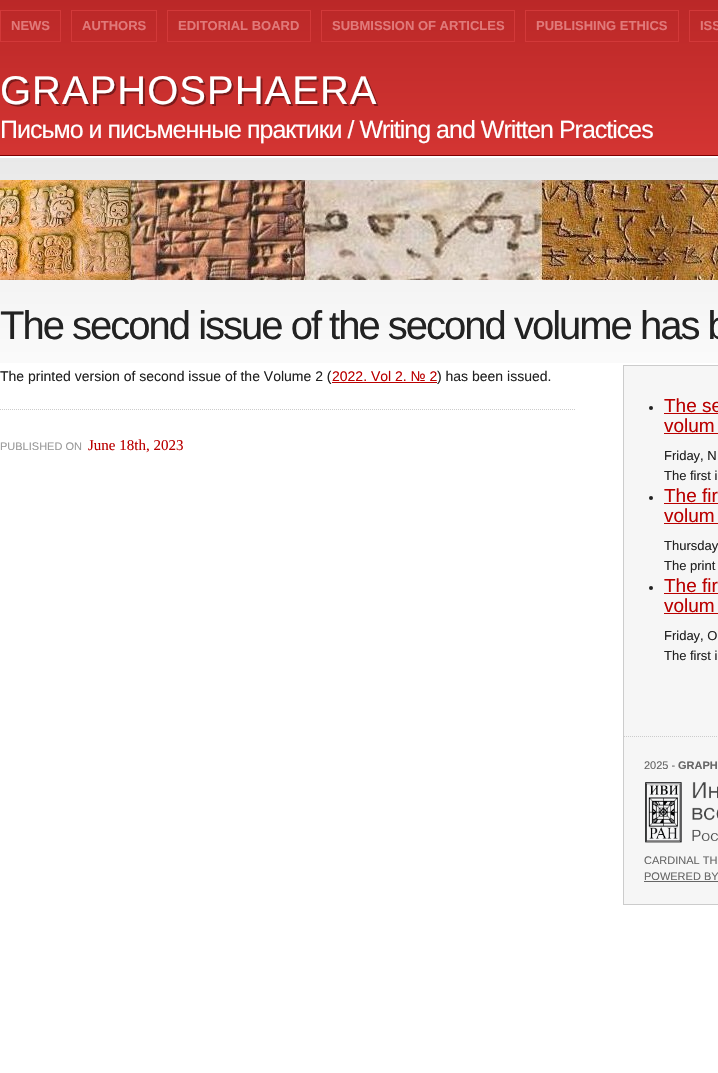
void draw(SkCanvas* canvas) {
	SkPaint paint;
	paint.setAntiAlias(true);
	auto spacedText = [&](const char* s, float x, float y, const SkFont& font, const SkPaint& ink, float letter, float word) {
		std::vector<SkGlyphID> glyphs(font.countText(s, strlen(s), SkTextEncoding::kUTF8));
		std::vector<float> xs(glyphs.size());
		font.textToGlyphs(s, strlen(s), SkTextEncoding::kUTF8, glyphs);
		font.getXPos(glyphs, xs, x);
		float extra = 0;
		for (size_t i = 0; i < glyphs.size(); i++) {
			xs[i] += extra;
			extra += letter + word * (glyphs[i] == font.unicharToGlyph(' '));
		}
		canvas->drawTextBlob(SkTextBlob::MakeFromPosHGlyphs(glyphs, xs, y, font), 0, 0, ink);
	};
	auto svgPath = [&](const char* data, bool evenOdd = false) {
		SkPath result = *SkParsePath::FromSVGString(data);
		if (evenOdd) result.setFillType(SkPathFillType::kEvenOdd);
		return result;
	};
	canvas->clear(0xffffffff);
	canvas->drawImageRect(SkImages::DeferredFromEncodedData(SkData::MakeFromFileName("img1.png")), SkRect::MakeXYWH(0, 0, 718, 363), SkSamplingOptions());
	paint.setStroke(true);
	paint.setStrokeWidth(1);
	paint.setColor(0xffd23939);
	canvas->drawRect(SkRect::MakeXYWH(0.5, 10.5, 60, 31), paint);
	SkFont f1(fontMgr->matchFamilyStyle("Liberation Sans", SkFontStyle::Bold()), 13);
	f1.setSubpixel(true);
	paint.setStroke(false);
	paint.setColor(0xffe17979);
	canvas->drawString("NEWS", 11, 30, f1, paint);
	paint.setStroke(true);
	paint.setColor(0xffd23939);
	canvas->drawRect(SkRect::MakeXYWH(71.5, 10.5, 85, 31), paint);
	paint.setStroke(false);
	paint.setColor(0xffe17979);
	canvas->drawString("AUTHORS", 82, 30, f1, paint);
	paint.setStroke(true);
	paint.setColor(0xffd23939);
	canvas->drawRect(SkRect::MakeXYWH(167.5, 10.5, 143, 31), paint);
	paint.setStroke(false);
	paint.setColor(0xffe17979);
	canvas->drawString("EDITORIAL BOARD", 178, 30, f1, paint);
	paint.setStroke(true);
	paint.setColor(0xffd23939);
	canvas->drawRect(SkRect::MakeXYWH(321.5, 10.5, 193, 31), paint);
	paint.setStroke(false);
	paint.setColor(0xffe17979);
	canvas->drawString("SUBMISSION OF ARTICLES", 332, 30, f1, paint);
	paint.setStroke(true);
	paint.setColor(0xffd23939);
	canvas->drawRect(SkRect::MakeXYWH(525.5, 10.5, 153, 31), paint);
	paint.setStroke(false);
	paint.setColor(0xffe17979);
	canvas->drawString("PUBLISHING ETHICS", 536, 30, f1, paint);
	paint.setStroke(true);
	paint.setColor(0xffd23939);
	canvas->drawRect(SkRect::MakeXYWH(689.5, 10.5, 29, 31), paint);
	paint.setStroke(false);
	paint.setColor(0xffe17979);
	canvas->drawString("ISS", 700, 30, f1, paint);
	SkFont f2(fontMgr->matchFamilyStyle("Liberation Sans", SkFontStyle::Normal()), 40);
	f2.setSubpixel(true);
	paint.setColor(0xff7c1b1b);
	spacedText("GRAPHOSPHAERA", 2, 106, f2, paint, 1, 0);
	paint.setColor(0xffffffff);
	spacedText("GRAPHOSPHAERA", 0, 104, f2, paint, 1, 0);
	SkFont f3(fontMgr->matchFamilyStyle("Liberation Sans", SkFontStyle::Normal()), 25);
	f3.setSubpixel(true);
	spacedText("Письмо и письменные практики / Writing and Written Practices", 0, 138, f3, paint, -1, 0);
	canvas->drawImageRect(SkImages::DeferredFromEncodedData(SkData::MakeFromFileName("img2.png")), SkRect::MakeXYWH(0, 180, 718, 100), SkSamplingOptions());
	paint.setColor(0xff222222);
	spacedText("The second issue of the second volume has b", 0, 339, f2, paint, -2, 0);
	SkFont f4(fontMgr->matchFamilyStyle("Liberation Sans", SkFontStyle::Normal()), 14);
	f4.setSubpixel(true);
	canvas->drawString("The printed version of second issue of the Volume 2 (", 0, 381, f4, paint);
	paint.setColor(0xffba0000);
	canvas->drawString("2022. Vol 2. № 2", 332, 381, f4, paint);
	canvas->drawRect(SkRect::MakeXYWH(332, 382, 105, 1), paint);
	paint.setColor(0xff222222);
	canvas->drawString(") has been issued.", 437, 381, f4, paint);
	paint.setStroke(true);
	paint.setColor(0xffcccccc);
	paint.setPathEffect(SkDashPathEffect::Make({{1, 1}}, 0));
	canvas->drawPath(svgPath("M0 409.5H575"), paint);
	paint.setPathEffect(nullptr);
	SkFont f5(fontMgr->matchFamilyStyle("Liberation Sans", SkFontStyle::Normal()), 11);
	f5.setSubpixel(true);
	paint.setStroke(false);
	paint.setColor(0xff999999);
	canvas->drawString("PUBLISHED ON", 0, 450, f5, paint);
	SkFont f6(fontMgr->matchFamilyStyle("Liberation Serif", SkFontStyle::Normal()), 15);
	f6.setSubpixel(true);
	paint.setColor(0xffba0000);
	canvas->drawString("June 18th, 2023", 88, 450, f6, paint);
	paint.setColor(0xfff6f6f6);
	canvas->drawRect(SkRect::MakeXYWH(623.5, 365.5, 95, 539), paint);
	paint.setStroke(true);
	paint.setColor(0xffcccccc);
	canvas->drawRect(SkRect::MakeXYWH(623.5, 365.5, 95, 539), paint);
	paint.setStroke(false);
	paint.setColor(0xff222222);
	canvas->drawCircle(651, 408, 2, paint);
	SkFont f7(fontMgr->matchFamilyStyle("Liberation Sans", SkFontStyle::Normal()), 19);
	f7.setSubpixel(true);
	paint.setColor(0xffba0000);
	canvas->drawString("The se", 664, 412, f7, paint);
	canvas->drawRect(SkRect::MakeXYWH(664, 413, 54, 1), paint);
	canvas->drawString("volum", 664, 432, f7, paint);
	canvas->drawRect(SkRect::MakeXYWH(664, 433, 54, 1), paint);
	SkFont f8(fontMgr->matchFamilyStyle("Liberation Sans", SkFontStyle::Normal()), 13);
	f8.setSubpixel(true);
	paint.setColor(0xff222222);
	canvas->drawString("Friday, N", 664, 460, f8, paint);
	canvas->drawString("The first i", 664, 480, f8, paint);
	canvas->drawCircle(651, 498, 2, paint);
	paint.setColor(0xffba0000);
	canvas->drawString("The fir", 664, 502, f7, paint);
	canvas->drawRect(SkRect::MakeXYWH(664, 503, 54, 1), paint);
	canvas->drawString("volum", 664, 522, f7, paint);
	canvas->drawRect(SkRect::MakeXYWH(664, 523, 54, 1), paint);
	paint.setColor(0xff222222);
	canvas->drawString("Thursday", 664, 550, f8, paint);
	canvas->drawString("The print", 664, 570, f8, paint);
	canvas->drawCircle(651, 588, 2, paint);
	paint.setColor(0xffba0000);
	canvas->drawString("The fir", 664, 592, f7, paint);
	canvas->drawRect(SkRect::MakeXYWH(664, 593, 54, 1), paint);
	canvas->drawString("volum", 664, 612, f7, paint);
	canvas->drawRect(SkRect::MakeXYWH(664, 613, 54, 1), paint);
	paint.setColor(0xff222222);
	canvas->drawString("Friday, O", 664, 640, f8, paint);
	canvas->drawString("The first i", 664, 660, f8, paint);
	paint.setStroke(true);
	paint.setColor(0xffcccccc);
	paint.setPathEffect(SkDashPathEffect::Make({{1, 1}}, 0));
	canvas->drawPath(svgPath("M624 736.5H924"), paint);
	paint.setPathEffect(nullptr);
	paint.setStroke(false);
	paint.setColor(0xff666666);
	canvas->drawString("2025 -", 644, 769, f5, paint);
	SkFont f9(fontMgr->matchFamilyStyle("Liberation Sans", SkFontStyle::Bold()), 11);
	f9.setSubpixel(true);
	canvas->drawString("GRAPH", 678, 769, f9, paint);
	canvas->drawImageRect(SkImages::DeferredFromEncodedData(SkData::MakeFromFileName("img3.png")), SkRect::MakeXYWH(645, 782, 73, 61), SkSamplingOptions());
	canvas->drawString("CARDINAL TH", 644, 864, f5, paint);
	canvas->drawString("POWERED BY", 644, 880, f5, paint);
	canvas->drawRect(SkRect::MakeXYWH(644, 881, 74, 1), paint);
}
